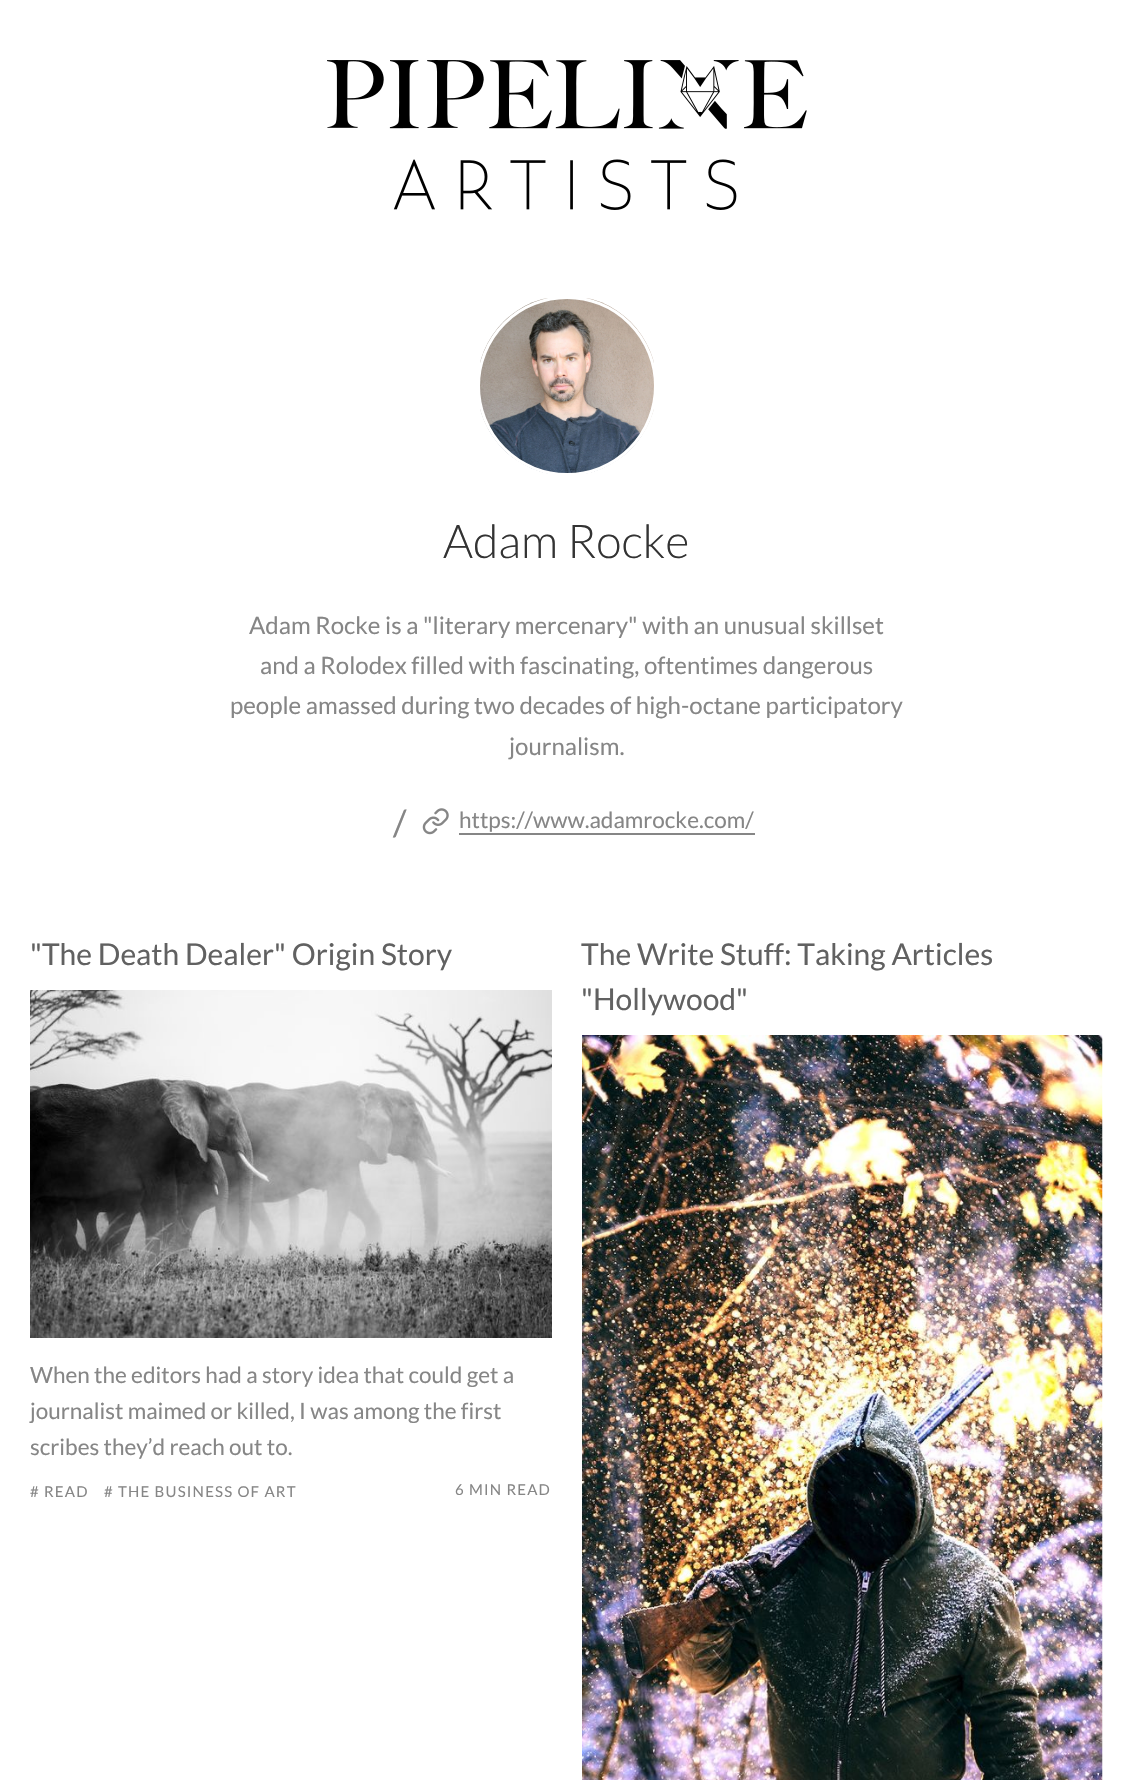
void draw(SkCanvas* canvas) {
	SkPaint paint;
	paint.setAntiAlias(true);
	auto spacedText = [&](const char* s, float x, float y, const SkFont& font, const SkPaint& ink, float letter, float word) {
		std::vector<SkGlyphID> glyphs(font.countText(s, strlen(s), SkTextEncoding::kUTF8));
		std::vector<float> xs(glyphs.size());
		font.textToGlyphs(s, strlen(s), SkTextEncoding::kUTF8, glyphs);
		font.getXPos(glyphs, xs, x);
		float extra = 0;
		for (size_t i = 0; i < glyphs.size(); i++) {
			xs[i] += extra;
			extra += letter + word * (glyphs[i] == font.unicharToGlyph(' '));
		}
		canvas->drawTextBlob(SkTextBlob::MakeFromPosHGlyphs(glyphs, xs, y, font), 0, 0, ink);
	};
	canvas->clear(0xffffffff);
	canvas->drawImageRect(SkImages::DeferredFromEncodedData(SkData::MakeFromFileName("img1.png")), SkRect::MakeXYWH(327, 60, 480, 150), SkSamplingOptions());
	canvas->drawImageRect(SkImages::DeferredFromEncodedData(SkData::MakeFromFileName("img2.png")), SkRect::MakeXYWH(480, 298, 174, 176), SkSamplingOptions());
	paint.setStroke(true);
	paint.setStrokeWidth(3);
	paint.setColor(0xffffffff);
	canvas->drawCircle(567, 386, 88.5, paint);
	SkFont f1(fontMgr->matchFamilyStyle("Lato", SkFontStyle(300, SkFontStyle::kNormal_Width, SkFontStyle::kUpright_Slant)), 46.5);
	f1.setSubpixel(true);
	paint.setStroke(false);
	paint.setColor(0xff333333);
	canvas->drawString("Adam Rocke", 443, 558, f1, paint);
	SkFont f2(fontMgr->matchFamilyStyle("Lato", SkFontStyle::Normal()), 24);
	f2.setSubpixel(true);
	paint.setColor(0xff868686);
	canvas->drawString("Adam Rocke is a \"literary mercenary\" with an unusual skillset", 249, 634, f2, paint);
	canvas->drawString("and a Rolodex filled with fascinating, oftentimes dangerous", 260, 674, f2, paint);
	canvas->drawString("people amassed during two decades of high-octane participatory", 230, 714, f2, paint);
	canvas->drawString("journalism.", 509, 755, f2, paint);
	SkFont f3(fontMgr->matchFamilyStyle("Lato", SkFontStyle::Normal()), 36);
	f3.setSubpixel(true);
	canvas->drawString("/", 393, 836, f3, paint);
	canvas->drawImageRect(SkImages::DeferredFromEncodedData(SkData::MakeFromFileName("img3.png")), SkRect::MakeXYWH(422, 808, 27, 27), SkSamplingOptions());
	SkFont f4(fontMgr->matchFamilyStyle("Lato", SkFontStyle::Normal()), 22.5);
	f4.setSubpixel(true);
	canvas->drawString("https://www.adamrocke.com/", 459, 828, f4, paint);
	canvas->drawRect(SkRect::MakeXYWH(459, 833, 296, 2), paint);
	SkFont f5(fontMgr->matchFamilyStyle("Lato", SkFontStyle::Normal()), 30);
	f5.setSubpixel(true);
	paint.setColor(0xff616161);
	canvas->drawString("\"The Death Dealer\" Origin Story", 30, 965, f5, paint);
	canvas->drawImageRect(SkImages::DeferredFromEncodedData(SkData::MakeFromFileName("img4.png")), SkRect::MakeXYWH(30, 990, 522, 348), SkSamplingOptions());
	paint.setColor(0xff868686);
	canvas->drawString("When the editors had a story idea that could get a", 30, 1383, f4, paint);
	canvas->drawString("journalist maimed or killed, I was among the first", 30, 1419, f4, paint);
	canvas->drawString("scribes they’d reach out to.", 30, 1455, f4, paint);
	SkFont f6(fontMgr->matchFamilyStyle("Lato", SkFontStyle::Normal()), 15);
	f6.setSubpixel(true);
	spacedText("# READ", 30, 1497, f6, paint, 1.2, 0);
	spacedText("# THE BUSINESS OF ART", 104, 1497, f6, paint, 1.2, 0);
	spacedText("6 MIN READ", 455, 1495, f6, paint, 1.2, 0);
	paint.setColor(0xff616161);
	canvas->drawString("The Write Stuff: Taking Articles", 581, 965, f5, paint);
	canvas->drawString("\"Hollywood\"", 581, 1010, f5, paint);
	canvas->drawImageRect(SkImages::DeferredFromEncodedData(SkData::MakeFromFileName("img5.png")), SkRect::MakeXYWH(582, 1035, 521, 745), SkSamplingOptions());
}
